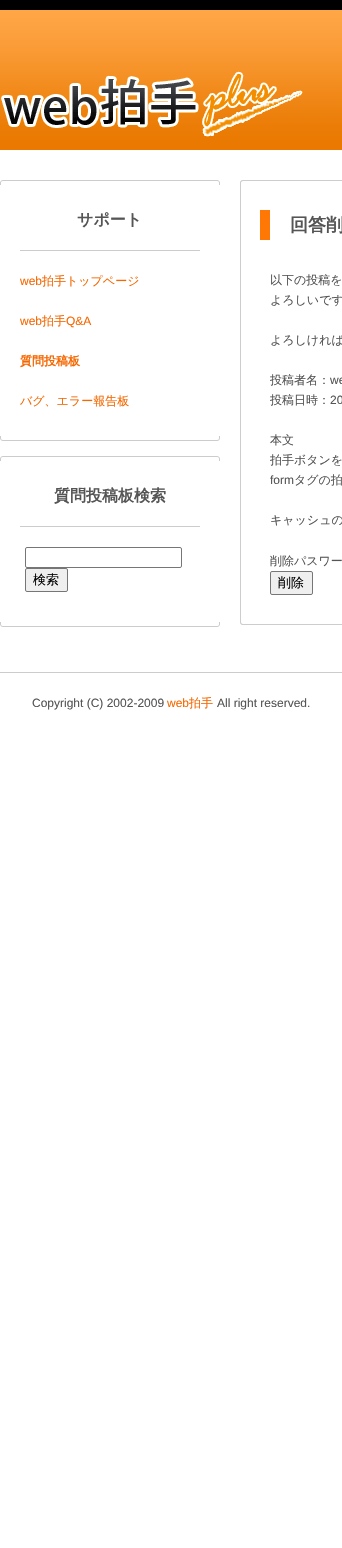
void draw(SkCanvas* canvas) {
	SkPaint paint;
	paint.setAntiAlias(true);
	canvas->clear(0xffffffff);
	canvas->drawImageRect(SkImages::DeferredFromEncodedData(SkData::MakeFromFileName("img1.png")), SkRect::MakeXYWH(0, 0, 342, 150), SkSamplingOptions());
	canvas->drawImageRect(SkImages::DeferredFromEncodedData(SkData::MakeFromFileName("img2.png")), SkRect::MakeXYWH(1, 71, 302, 66), SkSamplingOptions());
	canvas->drawImageRect(SkImages::DeferredFromEncodedData(SkData::MakeFromFileName("img3.png")), SkRect::MakeXYWH(0, 180, 220, 5), SkSamplingOptions());
	SkFont f1(fontMgr->matchFamilyStyle("WenQuanYi Zen Hei", SkFontStyle::Bold()), 16);
	f1.setSubpixel(true);
	paint.setColor(0xff555555);
	canvas->drawString("サポート", 77, 225, f1, paint);
	paint.setColor(0xffcccccc);
	canvas->drawRect(SkRect::MakeXYWH(20, 250, 180, 1), paint);
	SkFont f2(fontMgr->matchFamilyStyle("Liberation Sans", SkFontStyle::Normal()), 12);
	f2.setSubpixel(true);
	paint.setColor(0xfff66700);
	canvas->drawString("web", 20, 285, f2, paint);
	SkFont f3(fontMgr->matchFamilyStyle("WenQuanYi Zen Hei", SkFontStyle(500, SkFontStyle::kNormal_Width, SkFontStyle::kUpright_Slant)), 12);
	f3.setSubpixel(true);
	canvas->drawString("拍手トップページ", 42, 285, f3, paint);
	canvas->drawString("web", 20, 325, f2, paint);
	canvas->drawString("拍手", 42, 325, f3, paint);
	canvas->drawString("Q&A", 66, 325, f2, paint);
	SkFont f4(fontMgr->matchFamilyStyle("WenQuanYi Zen Hei", SkFontStyle::Bold()), 12);
	f4.setSubpixel(true);
	canvas->drawString("質問投稿板", 20, 365, f4, paint);
	canvas->drawString("バグ、エラー報告板", 20, 405, f3, paint);
	canvas->drawImageRect(SkImages::DeferredFromEncodedData(SkData::MakeFromFileName("img4.png")), SkRect::MakeXYWH(0, 436, 220, 5), SkSamplingOptions());
	canvas->drawImageRect(SkImages::DeferredFromEncodedData(SkData::MakeFromFileName("img3.png")), SkRect::MakeXYWH(0, 456, 220, 5), SkSamplingOptions());
	paint.setColor(0xff555555);
	canvas->drawString("質問投稿板検索", 54, 501, f1, paint);
	paint.setColor(0xffcccccc);
	canvas->drawRect(SkRect::MakeXYWH(20, 526, 180, 1), paint);
	paint.setStroke(true);
	paint.setStrokeWidth(1);
	paint.setColor(0xff767676);
	canvas->drawRoundRect(SkRect::MakeXYWH(25.5, 547.5, 156, 20), 1.5, 1.5, paint);
	paint.setStroke(false);
	paint.setColor(0xffefefef);
	canvas->drawRoundRect(SkRect::MakeXYWH(25.5, 568.5, 42, 23), 1.5, 1.5, paint);
	paint.setStroke(true);
	paint.setColor(0xff767676);
	canvas->drawRoundRect(SkRect::MakeXYWH(25.5, 568.5, 42, 23), 1.5, 1.5, paint);
	SkFont f5(fontMgr->matchFamilyStyle("WenQuanYi Zen Hei", SkFontStyle(500, SkFontStyle::kNormal_Width, SkFontStyle::kUpright_Slant)), 13);
	f5.setSubpixel(true);
	paint.setStroke(false);
	paint.setColor(0xff000000);
	canvas->drawString("検索", 33, 584, f5, paint);
	canvas->drawImageRect(SkImages::DeferredFromEncodedData(SkData::MakeFromFileName("img4.png")), SkRect::MakeXYWH(0, 622, 220, 5), SkSamplingOptions());
	canvas->drawImageRect(SkImages::DeferredFromEncodedData(SkData::MakeFromFileName("img5.png")), SkRect::MakeXYWH(240, 180, 102, 5), SkSamplingOptions());
	paint.setColor(0xffcdcdcd);
	canvas->drawRect(SkRect::MakeXYWH(240, 185, 1, 435), paint);
	paint.setColor(0xffff7705);
	canvas->drawRect(SkRect::MakeXYWH(260, 210, 10, 30), paint);
	SkFont f6(fontMgr->matchFamilyStyle("WenQuanYi Zen Hei", SkFontStyle::Bold()), 18);
	f6.setSubpixel(true);
	paint.setColor(0xff555555);
	canvas->drawString("回答削", 290, 231, f6, paint);
	canvas->drawString("以下の投稿を", 270, 284, f3, paint);
	canvas->drawString("よろしいです", 270, 304, f3, paint);
	canvas->drawString("よろしければ", 270, 344, f3, paint);
	canvas->drawString("投稿者名：", 270, 384, f3, paint);
	canvas->drawString("we", 330, 384, f2, paint);
	canvas->drawString("投稿日時：", 270, 404, f3, paint);
	canvas->drawString("20", 330, 404, f2, paint);
	canvas->drawString("本文", 270, 444, f3, paint);
	canvas->drawString("拍手ボタンを", 270, 464, f3, paint);
	canvas->drawString("form", 270, 484, f2, paint);
	canvas->drawString("タグの拍", 294, 484, f3, paint);
	canvas->drawString("キャッシュの", 270, 524, f3, paint);
	canvas->drawString("削除パスワー", 270, 565, f3, paint);
	paint.setColor(0xffefefef);
	canvas->drawRoundRect(SkRect::MakeXYWH(270.5, 571.5, 42, 23), 1.5, 1.5, paint);
	paint.setStroke(true);
	paint.setColor(0xff767676);
	canvas->drawRoundRect(SkRect::MakeXYWH(270.5, 571.5, 42, 23), 1.5, 1.5, paint);
	paint.setStroke(false);
	paint.setColor(0xff000000);
	canvas->drawString("削除", 278, 587, f5, paint);
	canvas->drawImageRect(SkImages::DeferredFromEncodedData(SkData::MakeFromFileName("img6.png")), SkRect::MakeXYWH(240, 620, 102, 5), SkSamplingOptions());
	paint.setColor(0xffcccccc);
	canvas->drawRect(SkRect::MakeXYWH(0, 672, 342, 1), paint);
	paint.setColor(0xff555555);
	canvas->drawString("Copyright (C) 2002-2009", 32, 707, f2, paint);
	paint.setColor(0xfff66700);
	canvas->drawString("web", 167, 707, f2, paint);
	canvas->drawString("拍手", 189, 707, f3, paint);
	paint.setColor(0xff555555);
	canvas->drawString("All right reserved.", 217, 707, f2, paint);
}
